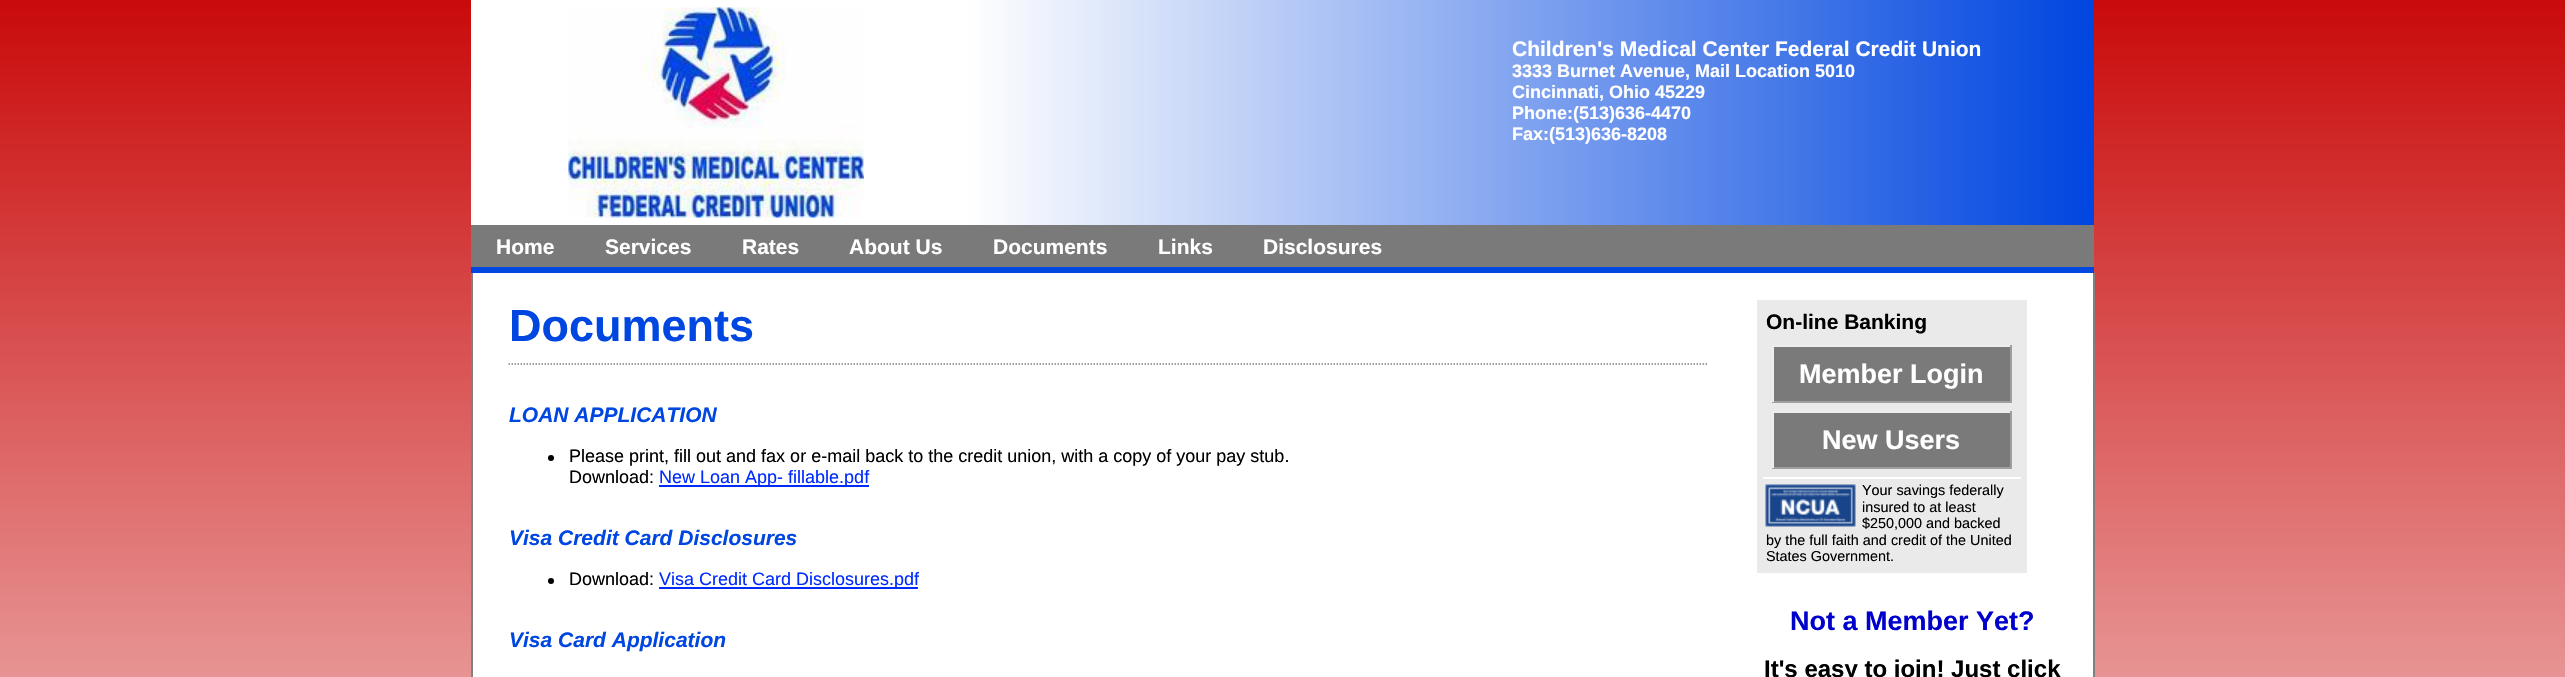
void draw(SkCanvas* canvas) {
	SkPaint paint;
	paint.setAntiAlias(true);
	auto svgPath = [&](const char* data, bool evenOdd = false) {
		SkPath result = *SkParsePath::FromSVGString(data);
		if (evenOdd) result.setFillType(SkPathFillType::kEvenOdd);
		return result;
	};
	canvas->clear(0xffffffff);
	canvas->drawImageRect(SkImages::DeferredFromEncodedData(SkData::MakeFromFileName("img1.png")), SkRect::MakeXYWH(0, 0, 2565, 677), SkSamplingOptions());
	canvas->drawImageRect(SkImages::DeferredFromEncodedData(SkData::MakeFromFileName("img2.png")), SkRect::MakeXYWH(471, 0, 1623, 225), SkSamplingOptions());
	canvas->drawImageRect(SkImages::DeferredFromEncodedData(SkData::MakeFromFileName("img3.png")), SkRect::MakeXYWH(568, 7, 296, 211), SkSamplingOptions());
	SkFont f1(fontMgr->matchFamilyStyle("Liberation Sans", SkFontStyle::Bold()), 21);
	f1.setSubpixel(true);
	paint.setColor(0xffffffff);
	canvas->drawString("Children's Medical Center Federal Credit Union", 1512, 56, f1, paint);
	SkFont f2(fontMgr->matchFamilyStyle("Liberation Sans", SkFontStyle::Bold()), 18);
	f2.setSubpixel(true);
	canvas->drawString("3333 Burnet Avenue, Mail Location 5010", 1512, 77, f2, paint);
	canvas->drawString("Cincinnati, Ohio 45229", 1512, 98, f2, paint);
	canvas->drawString("Phone:(513)636-4470", 1512, 119, f2, paint);
	canvas->drawString("Fax:(513)636-8208", 1512, 140, f2, paint);
	paint.setColor(0xff7a7a7a);
	canvas->drawRect(SkRect::MakeXYWH(471, 225, 1623, 42), paint);
	paint.setColor(0xff0046e0);
	canvas->drawRect(SkRect::MakeXYWH(471, 267, 1623, 6), paint);
	paint.setColor(0xffffffff);
	canvas->drawString("Home", 496, 254, f1, paint);
	canvas->drawString("Services", 605, 254, f1, paint);
	canvas->drawString("Rates", 742, 254, f1, paint);
	canvas->drawString("About Us", 849, 254, f1, paint);
	canvas->drawString("Documents", 993, 254, f1, paint);
	canvas->drawString("Links", 1158, 254, f1, paint);
	canvas->drawString("Disclosures", 1263, 254, f1, paint);
	canvas->drawRect(SkRect::MakeXYWH(473, 273, 1620, 404), paint);
	paint.setColor(0xff808080);
	canvas->drawRect(SkRect::MakeXYWH(2093, 273, 2, 404), paint);
	canvas->drawRect(SkRect::MakeXYWH(471, 273, 2, 404), paint);
	paint.setStroke(true);
	paint.setStrokeWidth(1.5);
	paint.setPathEffect(SkDashPathEffect::Make({{1.5f, 1.5f}}, 0));
	canvas->drawPath(svgPath("M508.5 364H1708.5"), paint);
	paint.setPathEffect(nullptr);
	SkFont f3(fontMgr->matchFamilyStyle("Liberation Sans", SkFontStyle::Bold()), 45);
	f3.setSubpixel(true);
	paint.setStroke(false);
	paint.setColor(0xff0046e0);
	canvas->drawString("Documents", 509, 341, f3, paint);
	SkFont f4(fontMgr->matchFamilyStyle("Liberation Sans", SkFontStyle::BoldItalic()), 21);
	f4.setSubpixel(true);
	canvas->drawString("LOAN APPLICATION", 509, 422, f4, paint);
	paint.setColor(0xff000000);
	canvas->drawCircle(551, 458, 3, paint);
	SkFont f5(fontMgr->matchFamilyStyle("Liberation Sans", SkFontStyle::Normal()), 18);
	f5.setSubpixel(true);
	canvas->drawString("Please print, fill out and fax or e-mail back to the credit union, with a copy of your pay stub.", 569, 462, f5, paint);
	canvas->drawString("Download:", 569, 483, f5, paint);
	paint.setColor(0xff002bff);
	canvas->drawRect(SkRect::MakeXYWH(659, 485, 210, 2), paint);
	canvas->drawString("New Loan App- fillable.pdf", 659, 483, f5, paint);
	paint.setColor(0xff0046e0);
	canvas->drawString("Visa Credit Card Disclosures", 509, 545, f4, paint);
	paint.setColor(0xff000000);
	canvas->drawCircle(551, 581, 3, paint);
	canvas->drawString("Download:", 569, 585, f5, paint);
	paint.setColor(0xff002bff);
	canvas->drawRect(SkRect::MakeXYWH(659, 587, 259, 2), paint);
	canvas->drawString("Visa Credit Card Disclosures.pdf", 659, 585, f5, paint);
	paint.setColor(0xff0046e0);
	canvas->drawString("Visa Card Application", 509, 647, f4, paint);
	paint.setColor(0xffeaeaea);
	canvas->drawRect(SkRect::MakeXYWH(1757, 300, 270, 273), paint);
	paint.setColor(0xff000000);
	canvas->drawString("On-line Banking", 1766, 329, f1, paint);
	paint.setColor(0xff7a7a7a);
	canvas->drawRect(SkRect::MakeXYWH(1774, 347, 236, 54), paint);
	paint.setColor(0xffeeeeee);
	canvas->drawRect(SkRect::MakeXYWH(1772, 345, 240, 2), paint);
	paint.setColor(0xff9f9f9f);
	canvas->drawRect(SkRect::MakeXYWH(2010, 345, 2, 57), paint);
	canvas->drawRect(SkRect::MakeXYWH(1772, 401, 240, 2), paint);
	paint.setColor(0xffeeeeee);
	canvas->drawRect(SkRect::MakeXYWH(1772, 345, 2, 57), paint);
	SkFont f6(fontMgr->matchFamilyStyle("Liberation Sans", SkFontStyle::Bold()), 27);
	f6.setSubpixel(true);
	paint.setColor(0xffffffff);
	canvas->drawString("Member Login", 1799, 383, f6, paint);
	paint.setColor(0xff7a7a7a);
	canvas->drawRect(SkRect::MakeXYWH(1774, 413, 236, 54), paint);
	paint.setColor(0xffeeeeee);
	canvas->drawRect(SkRect::MakeXYWH(1772, 411, 240, 2), paint);
	paint.setColor(0xff9f9f9f);
	canvas->drawRect(SkRect::MakeXYWH(2010, 411, 2, 57), paint);
	canvas->drawRect(SkRect::MakeXYWH(1772, 467, 240, 2), paint);
	paint.setColor(0xffeeeeee);
	canvas->drawRect(SkRect::MakeXYWH(1772, 411, 2, 57), paint);
	paint.setColor(0xffffffff);
	canvas->drawString("New Users", 1822, 449, f6, paint);
	canvas->drawRect(SkRect::MakeXYWH(1763, 477, 258, 2), paint);
	canvas->drawImageRect(SkImages::DeferredFromEncodedData(SkData::MakeFromFileName("img4.png")), SkRect::MakeXYWH(1765, 484, 91, 43), SkSamplingOptions());
	SkFont f7(fontMgr->matchFamilyStyle("Liberation Sans", SkFontStyle::Normal()), 14.4);
	f7.setSubpixel(true);
	paint.setColor(0xff000000);
	canvas->drawString("Your savings federally", 1862, 495, f7, paint);
	canvas->drawString("insured to at least", 1862, 512, f7, paint);
	canvas->drawString("$250,000 and backed", 1862, 528, f7, paint);
	canvas->drawString("by the full faith and credit of the United", 1766, 545, f7, paint);
	canvas->drawString("States Government.", 1766, 561, f7, paint);
	paint.setColor(0xff0000cd);
	canvas->drawString("Not a Member Yet?", 1790, 630, f6, paint);
	SkFont f8(fontMgr->matchFamilyStyle("Liberation Sans", SkFontStyle::Bold()), 24);
	f8.setSubpixel(true);
	paint.setColor(0xff000000);
	canvas->drawString("It's easy to join! Just click", 1764, 677, f8, paint);
}
